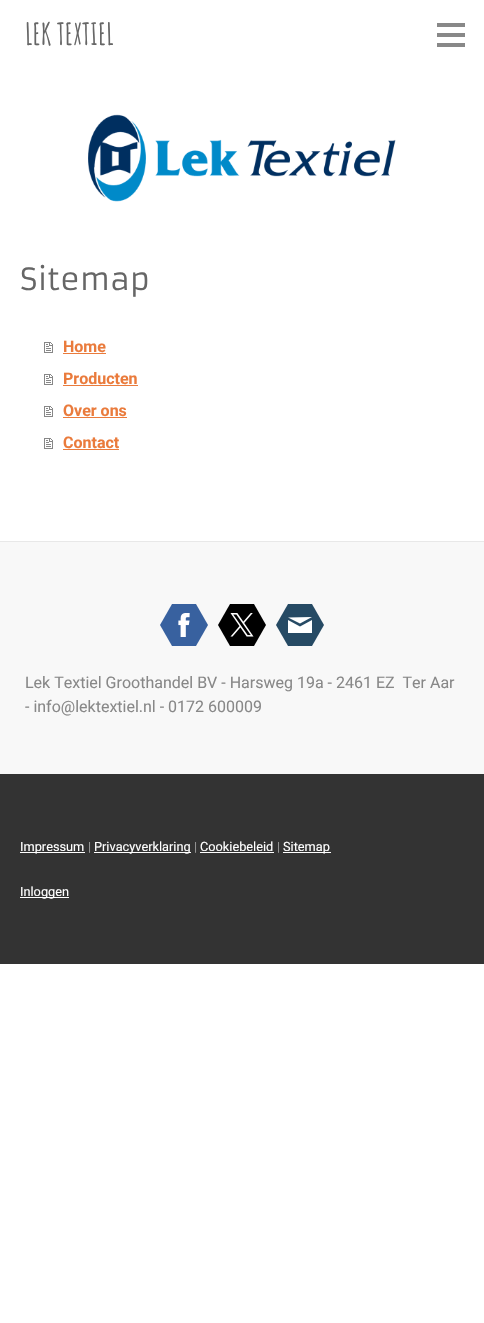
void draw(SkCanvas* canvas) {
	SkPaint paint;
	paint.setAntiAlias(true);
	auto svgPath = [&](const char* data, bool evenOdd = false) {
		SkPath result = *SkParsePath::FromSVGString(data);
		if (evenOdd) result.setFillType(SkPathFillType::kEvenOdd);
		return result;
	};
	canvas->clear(0xffffffff);
	SkFont f1(fontMgr->matchFamilyStyle("Amatic SC", SkFontStyle::Bold()), 30);
	f1.setSubpixel(true);
	paint.setColor(0xff666666);
	canvas->drawString("LEK TEXTIEL", 25, 45, f1, paint);
	paint.setColor(0xff888888);
	canvas->drawRect(SkRect::MakeXYWH(437, 23, 28, 4), paint);
	canvas->drawRect(SkRect::MakeXYWH(437, 33, 28, 4), paint);
	canvas->drawRect(SkRect::MakeXYWH(437, 43, 28, 4), paint);
	canvas->drawImageRect(SkImages::DeferredFromEncodedData(SkData::MakeFromFileName("img1.png")), SkRect::MakeXYWH(88, 114, 308, 88), SkSamplingOptions());
	SkFont f2(fontMgr->matchFamilyStyle("Armata", SkFontStyle::Normal()), 30);
	f2.setSubpixel(true);
	paint.setColor(0xff666666);
	canvas->drawString("Sitemap", 20, 290, f2, paint);
	canvas->drawImageRect(SkImages::DeferredFromEncodedData(SkData::MakeFromFileName("img2.png")), SkRect::MakeXYWH(44, 342, 9, 11), SkSamplingOptions());
	SkFont f3(fontMgr->matchFamilyStyle("Roboto", SkFontStyle::Bold()), 16);
	f3.setSubpixel(true);
	paint.setColor(0xffea7b3c);
	canvas->drawString("Home", 63, 352, f3, paint);
	canvas->drawRect(SkRect::MakeXYWH(63, 353, 43, 1), paint);
	canvas->drawImageRect(SkImages::DeferredFromEncodedData(SkData::MakeFromFileName("img2.png")), SkRect::MakeXYWH(44, 374, 9, 11), SkSamplingOptions());
	canvas->drawString("Producten", 63, 384, f3, paint);
	canvas->drawRect(SkRect::MakeXYWH(63, 385, 75, 1), paint);
	canvas->drawImageRect(SkImages::DeferredFromEncodedData(SkData::MakeFromFileName("img2.png")), SkRect::MakeXYWH(44, 406, 9, 11), SkSamplingOptions());
	canvas->drawString("Over ons", 63, 416, f3, paint);
	canvas->drawRect(SkRect::MakeXYWH(63, 417, 64, 1), paint);
	canvas->drawImageRect(SkImages::DeferredFromEncodedData(SkData::MakeFromFileName("img2.png")), SkRect::MakeXYWH(44, 438, 9, 11), SkSamplingOptions());
	canvas->drawString("Contact", 63, 448, f3, paint);
	canvas->drawRect(SkRect::MakeXYWH(63, 449, 56, 1), paint);
	paint.setColor(0xfff8f8f8);
	canvas->drawRect(SkRect::MakeXYWH(0, 542, 484, 232), paint);
	paint.setColor(0xffe8e8e8);
	canvas->drawRect(SkRect::MakeXYWH(0, 541, 484, 1), paint);
	paint.setColor(0xff38619f);
	canvas->drawPath(svgPath("M172 646L160 625L172 604H196L208 625L196 646Z"), paint);
	canvas->drawImageRect(SkImages::DeferredFromEncodedData(SkData::MakeFromFileName("img3.png")), SkRect::MakeXYWH(178, 613, 12, 24), SkSamplingOptions());
	paint.setColor(0xff000000);
	canvas->drawPath(svgPath("M230 646L218 625L230 604H254L266 625L254 646Z"), paint);
	canvas->drawImageRect(SkImages::DeferredFromEncodedData(SkData::MakeFromFileName("img4.png")), SkRect::MakeXYWH(230, 613, 24, 24), SkSamplingOptions());
	paint.setColor(0xff264a64);
	canvas->drawPath(svgPath("M288 646L276 625L288 604H312L324 625L312 646Z"), paint);
	paint.setColor(0xffffffff);
	canvas->drawPath(svgPath("M312 633H288V620L300 626.5L312 620ZM312 617L288 617.5L300 623.5Z"), paint);
	SkFont f4(fontMgr->matchFamilyStyle("Roboto", SkFontStyle::Normal()), 16);
	f4.setSubpixel(true);
	paint.setColor(0xff888888);
	canvas->drawString("Lek Textiel Groothandel BV - Harsweg 19a - 2461 EZ  Ter Aar", 25, 688, f4, paint);
	canvas->drawString("- info@lektextiel.nl - 0172 600009", 25, 712, f4, paint);
	paint.setColor(0xff333333);
	canvas->drawRect(SkRect::MakeXYWH(0, 774, 484, 190), paint);
	paint.setColor(0xffffffff);
	canvas->drawRect(SkRect::MakeXYWH(20, 852, 65, 1), paint);
	SkFont f5(fontMgr->matchFamilyStyle("Roboto", SkFontStyle::Normal()), 12.75);
	f5.setSubpixel(true);
	canvas->drawString("Impressum", 20, 851, f5, paint);
	paint.setColor(0xff999999);
	canvas->drawString("|", 88, 851, f5, paint);
	paint.setColor(0xffffffff);
	canvas->drawRect(SkRect::MakeXYWH(94, 852, 97, 1), paint);
	canvas->drawString("Privacyverklaring", 94, 851, f5, paint);
	paint.setColor(0xff999999);
	canvas->drawString("|", 194, 851, f5, paint);
	paint.setColor(0xffffffff);
	canvas->drawString("Cookiebeleid", 200, 851, f5, paint);
	canvas->drawRect(SkRect::MakeXYWH(200, 852, 74, 1), paint);
	paint.setColor(0xff999999);
	canvas->drawString("|", 277, 851, f5, paint);
	paint.setColor(0xffffffff);
	canvas->drawRect(SkRect::MakeXYWH(283, 852, 48, 1), paint);
	canvas->drawString("Sitemap", 283, 851, f5, paint);
	canvas->drawRect(SkRect::MakeXYWH(20, 897, 49, 1), paint);
	canvas->drawString("Inloggen", 20, 896, f5, paint);
}
